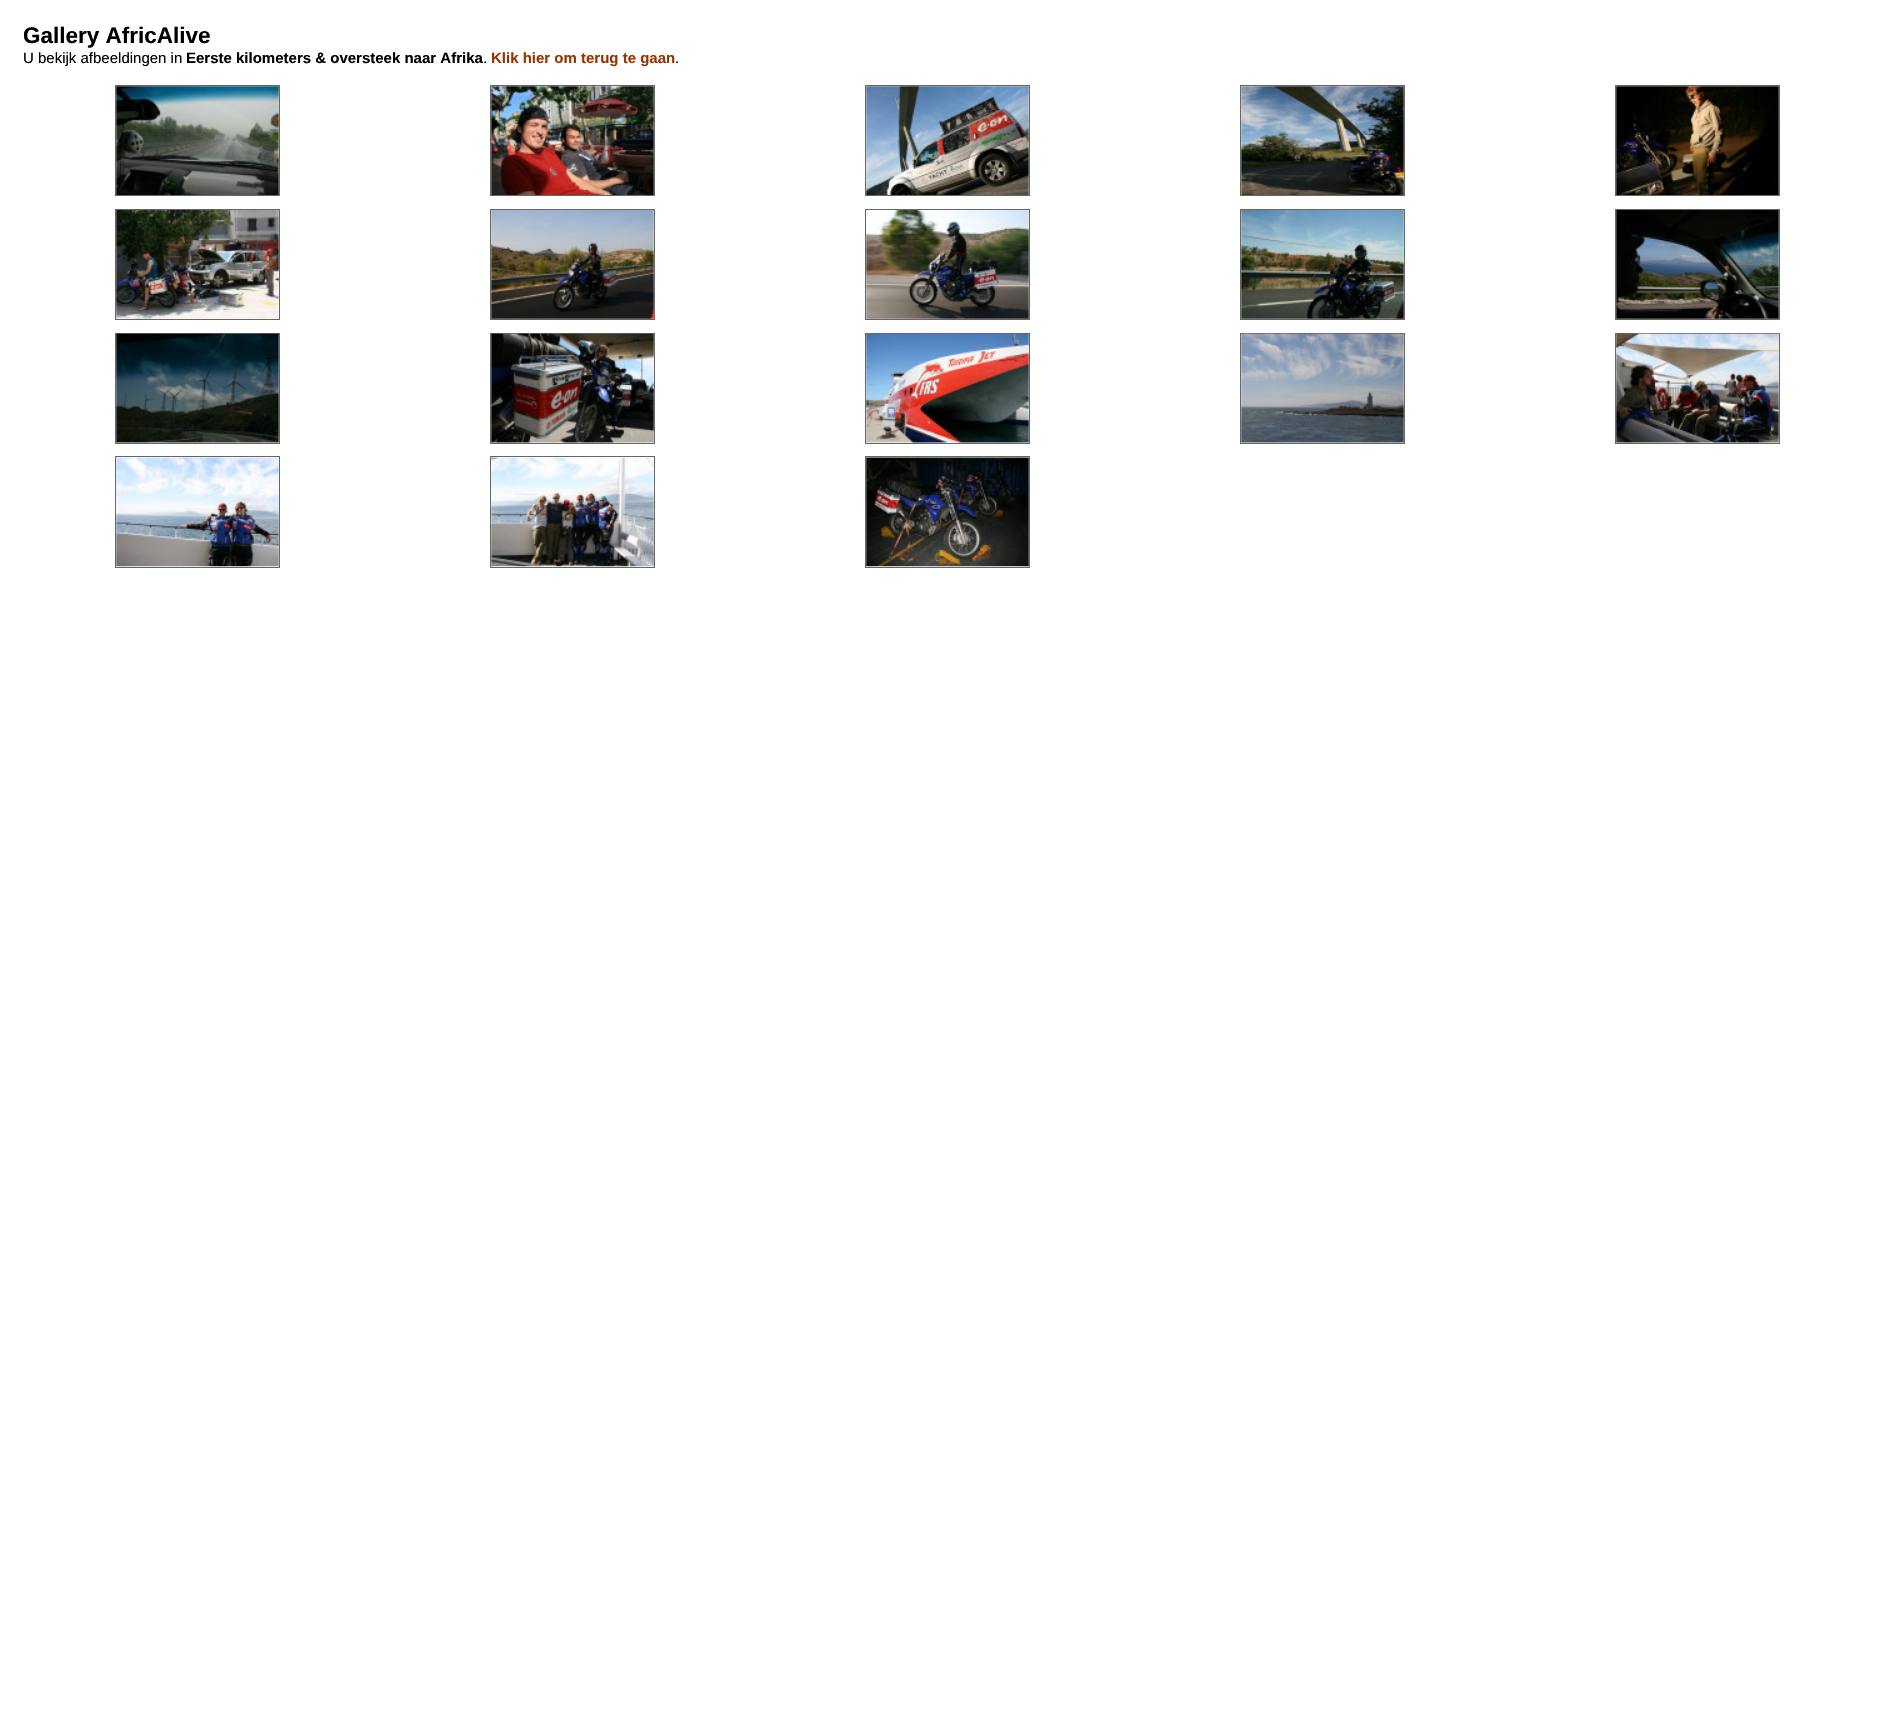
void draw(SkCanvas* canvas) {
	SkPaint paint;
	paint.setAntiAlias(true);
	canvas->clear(0xffffffff);
	SkFont f1(fontMgr->matchFamilyStyle("Liberation Sans", SkFontStyle::Bold()), 22.5);
	f1.setSubpixel(true);
	paint.setColor(0xff000000);
	canvas->drawString("Gallery AfricAlive", 23, 43, f1, paint);
	SkFont f2(fontMgr->matchFamilyStyle("Liberation Sans", SkFontStyle::Normal()), 15);
	f2.setSubpixel(true);
	canvas->drawString("U bekijk afbeeldingen in", 23, 63, f2, paint);
	SkFont f3(fontMgr->matchFamilyStyle("Liberation Sans", SkFontStyle::Bold()), 15);
	f3.setSubpixel(true);
	canvas->drawString("Eerste kilometers & oversteek naar Afrika", 186, 63, f3, paint);
	canvas->drawString(".", 483, 63, f2, paint);
	paint.setColor(0xff993300);
	canvas->drawString("Klik hier om terug te gaan", 491, 63, f3, paint);
	paint.setColor(0xff000000);
	canvas->drawString(".", 675, 63, f2, paint);
	paint.setStroke(true);
	paint.setStrokeWidth(1);
	paint.setColor(0xff666666);
	canvas->drawRect(SkRect::MakeXYWH(115.5, 85.5, 164, 110), paint);
	canvas->drawImageRect(SkImages::DeferredFromEncodedData(SkData::MakeFromFileName("img1.png")), SkRect::MakeXYWH(116, 86, 163, 109), SkSamplingOptions());
	canvas->drawRect(SkRect::MakeXYWH(490.5, 85.5, 164, 110), paint);
	canvas->drawImageRect(SkImages::DeferredFromEncodedData(SkData::MakeFromFileName("img2.png")), SkRect::MakeXYWH(491, 86, 163, 109), SkSamplingOptions());
	canvas->drawRect(SkRect::MakeXYWH(865.5, 85.5, 164, 110), paint);
	canvas->drawImageRect(SkImages::DeferredFromEncodedData(SkData::MakeFromFileName("img3.png")), SkRect::MakeXYWH(866, 86, 163, 109), SkSamplingOptions());
	canvas->drawRect(SkRect::MakeXYWH(1240.5, 85.5, 164, 110), paint);
	canvas->drawImageRect(SkImages::DeferredFromEncodedData(SkData::MakeFromFileName("img4.png")), SkRect::MakeXYWH(1241, 86, 163, 109), SkSamplingOptions());
	canvas->drawRect(SkRect::MakeXYWH(1615.5, 85.5, 164, 110), paint);
	canvas->drawImageRect(SkImages::DeferredFromEncodedData(SkData::MakeFromFileName("img5.png")), SkRect::MakeXYWH(1616, 86, 163, 109), SkSamplingOptions());
	canvas->drawRect(SkRect::MakeXYWH(115.5, 209.5, 164, 110), paint);
	canvas->drawImageRect(SkImages::DeferredFromEncodedData(SkData::MakeFromFileName("img6.png")), SkRect::MakeXYWH(116, 210, 163, 109), SkSamplingOptions());
	canvas->drawRect(SkRect::MakeXYWH(490.5, 209.5, 164, 110), paint);
	canvas->drawImageRect(SkImages::DeferredFromEncodedData(SkData::MakeFromFileName("img7.png")), SkRect::MakeXYWH(491, 210, 163, 109), SkSamplingOptions());
	canvas->drawRect(SkRect::MakeXYWH(865.5, 209.5, 164, 110), paint);
	canvas->drawImageRect(SkImages::DeferredFromEncodedData(SkData::MakeFromFileName("img8.png")), SkRect::MakeXYWH(866, 210, 163, 109), SkSamplingOptions());
	canvas->drawRect(SkRect::MakeXYWH(1240.5, 209.5, 164, 110), paint);
	canvas->drawImageRect(SkImages::DeferredFromEncodedData(SkData::MakeFromFileName("img9.png")), SkRect::MakeXYWH(1241, 210, 163, 109), SkSamplingOptions());
	canvas->drawRect(SkRect::MakeXYWH(1615.5, 209.5, 164, 110), paint);
	canvas->drawImageRect(SkImages::DeferredFromEncodedData(SkData::MakeFromFileName("img10.png")), SkRect::MakeXYWH(1616, 210, 163, 109), SkSamplingOptions());
	canvas->drawRect(SkRect::MakeXYWH(115.5, 333.5, 164, 110), paint);
	canvas->drawImageRect(SkImages::DeferredFromEncodedData(SkData::MakeFromFileName("img11.png")), SkRect::MakeXYWH(116, 333, 163, 110), SkSamplingOptions());
	canvas->drawRect(SkRect::MakeXYWH(490.5, 333.5, 164, 110), paint);
	canvas->drawImageRect(SkImages::DeferredFromEncodedData(SkData::MakeFromFileName("img12.png")), SkRect::MakeXYWH(491, 333, 163, 110), SkSamplingOptions());
	canvas->drawRect(SkRect::MakeXYWH(865.5, 333.5, 164, 110), paint);
	canvas->drawImageRect(SkImages::DeferredFromEncodedData(SkData::MakeFromFileName("img13.png")), SkRect::MakeXYWH(866, 333, 163, 110), SkSamplingOptions());
	canvas->drawRect(SkRect::MakeXYWH(1240.5, 333.5, 164, 110), paint);
	canvas->drawImageRect(SkImages::DeferredFromEncodedData(SkData::MakeFromFileName("img14.png")), SkRect::MakeXYWH(1241, 333, 163, 110), SkSamplingOptions());
	canvas->drawRect(SkRect::MakeXYWH(1615.5, 333.5, 164, 110), paint);
	canvas->drawImageRect(SkImages::DeferredFromEncodedData(SkData::MakeFromFileName("img15.png")), SkRect::MakeXYWH(1616, 333, 163, 110), SkSamplingOptions());
	canvas->drawRect(SkRect::MakeXYWH(115.5, 456.5, 164, 111), paint);
	canvas->drawImageRect(SkImages::DeferredFromEncodedData(SkData::MakeFromFileName("img16.png")), SkRect::MakeXYWH(116, 457, 163, 110), SkSamplingOptions());
	canvas->drawRect(SkRect::MakeXYWH(490.5, 456.5, 164, 111), paint);
	canvas->drawImageRect(SkImages::DeferredFromEncodedData(SkData::MakeFromFileName("img17.png")), SkRect::MakeXYWH(491, 457, 163, 110), SkSamplingOptions());
	canvas->drawRect(SkRect::MakeXYWH(865.5, 456.5, 164, 111), paint);
	canvas->drawImageRect(SkImages::DeferredFromEncodedData(SkData::MakeFromFileName("img18.png")), SkRect::MakeXYWH(866, 457, 163, 110), SkSamplingOptions());
}
